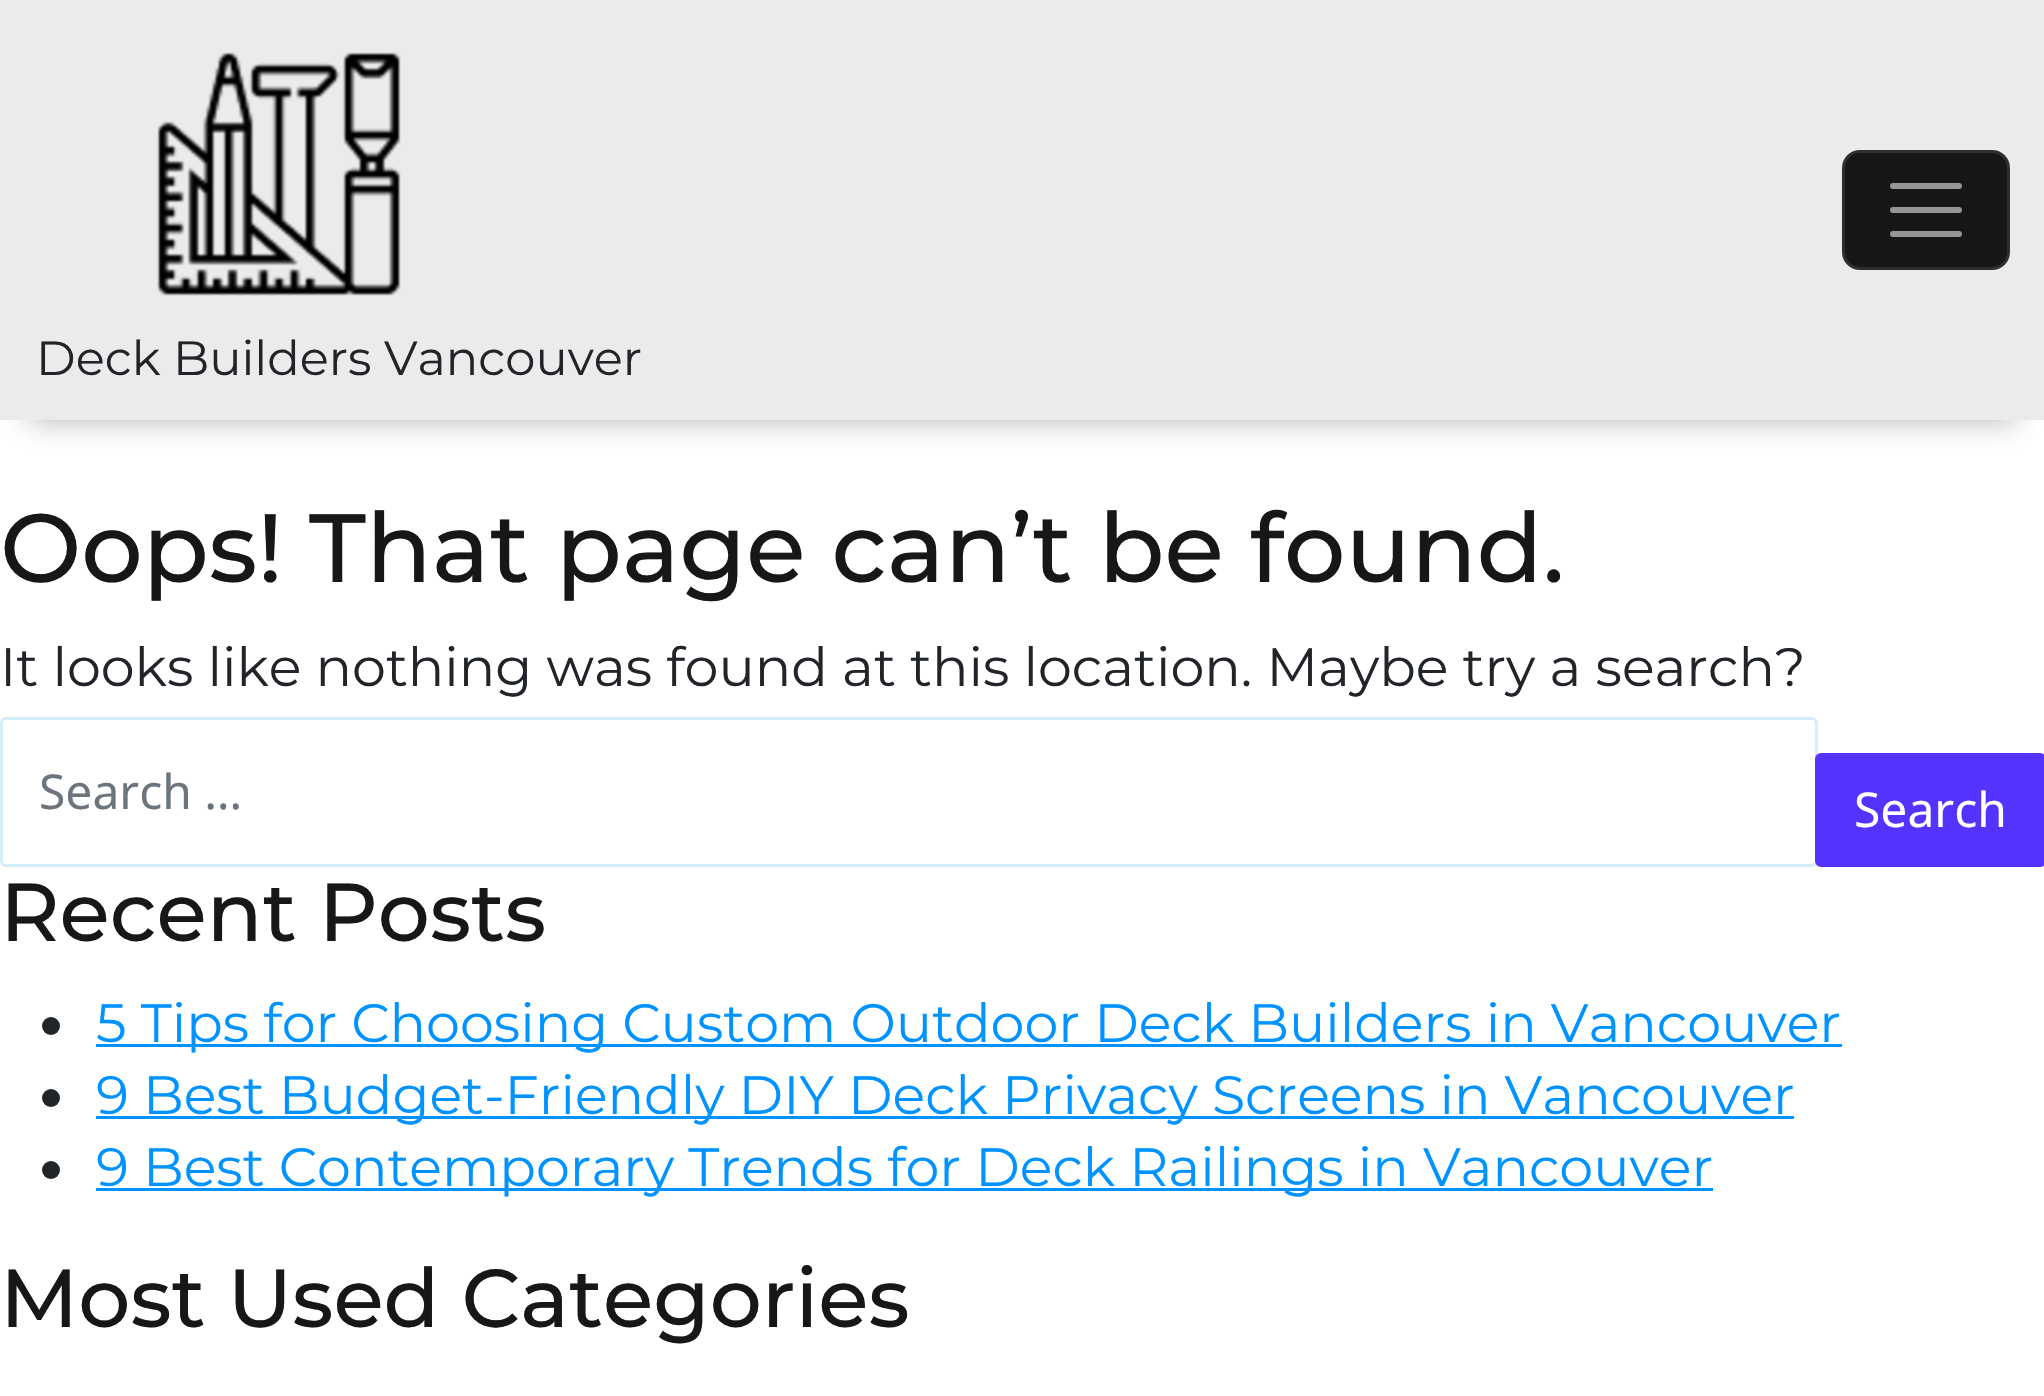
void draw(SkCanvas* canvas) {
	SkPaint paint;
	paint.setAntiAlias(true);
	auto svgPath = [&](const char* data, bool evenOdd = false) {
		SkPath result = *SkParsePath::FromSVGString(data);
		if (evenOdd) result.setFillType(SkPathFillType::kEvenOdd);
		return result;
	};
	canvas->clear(0xffffffff);
	paint.setColor(0x54111111);
	paint.setMaskFilter(SkMaskFilter::MakeBlur(kNormal_SkBlurStyle, 15));
	canvas->drawRect(SkRect::MakeXYWH(30, 60, 1986, 360), paint);
	paint.setMaskFilter(nullptr);
	paint.setColor(0xffebebeb);
	canvas->drawRect(SkRect::MakeXYWH(0, 0, 2044, 420), paint);
	paint.setColor(0xff181617);
	canvas->drawRoundRect(SkRect::MakeXYWH(1842, 150, 168, 120), 18, 18, paint);
	paint.setStroke(true);
	paint.setStrokeWidth(3);
	paint.setColor(0x1affffff);
	canvas->drawRoundRect(SkRect::MakeXYWH(1843.5, 151.5, 165, 117), 16.5, 16.5, paint);
	paint.setStrokeWidth(6);
	paint.setStrokeCap(SkPaint::kRound_Cap);
	paint.setColor(0xff979697);
	canvas->drawPath(svgPath("M1893 186H1959M1893 210H1959M1893 234H1959"), paint);
	canvas->drawImageRect(SkImages::DeferredFromEncodedData(SkData::MakeFromFileName("img1.png")), SkRect::MakeXYWH(157, 52, 244, 244), SkSamplingOptions());
	SkFont f1(fontMgr->matchFamilyStyle("Montserrat", SkFontStyle::Normal()), 48);
	f1.setSubpixel(true);
	paint.setStroke(false);
	paint.setColor(0xff212529);
	canvas->drawString("Deck Builders Vancouver", 36, 375, f1, paint);
	SkFont f2(fontMgr->matchFamilyStyle("Montserrat", SkFontStyle(500, SkFontStyle::kNormal_Width, SkFontStyle::kUpright_Slant)), 96.75);
	f2.setSubpixel(true);
	paint.setColor(0xff181617);
	canvas->drawString("Oops! That page can’t be found.", 0, 582, f2, paint);
	SkFont f3(fontMgr->matchFamilyStyle("Montserrat", SkFontStyle::Normal()), 54);
	f3.setSubpixel(true);
	paint.setColor(0xff212529);
	canvas->drawString("It looks like nothing was found at this location. Maybe try a search?", 0, 686, f3, paint);
	paint.setStroke(true);
	paint.setStrokeWidth(3);
	paint.setStrokeCap(SkPaint::kButt_Cap);
	paint.setColor(0xffd4eef9);
	canvas->drawRoundRect(SkRect::MakeXYWH(1.5, 718.5, 1815, 147), 4.5, 4.5, paint);
	SkFont f4(fontMgr->matchFamilyStyle("Noto Sans", SkFontStyle::Normal()), 48);
	f4.setSubpixel(true);
	paint.setStroke(false);
	paint.setColor(0xff6c757d);
	canvas->drawString("Search …", 39, 809, f4, paint);
	paint.setColor(0xff5533ff);
	canvas->drawRoundRect(SkRect::MakeXYWH(1816.5, 754.5, 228, 111), 4.5, 4.5, paint);
	paint.setStroke(true);
	canvas->drawRoundRect(SkRect::MakeXYWH(1816.5, 754.5, 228, 111), 4.5, 4.5, paint);
	paint.setStroke(false);
	paint.setColor(0xffffffff);
	canvas->drawString("Search", 1854, 827, f4, paint);
	SkFont f5(fontMgr->matchFamilyStyle("Montserrat", SkFontStyle(500, SkFontStyle::kNormal_Width, SkFontStyle::kUpright_Slant)), 82);
	f5.setSubpixel(true);
	paint.setColor(0xff181617);
	canvas->drawString("Recent Posts", 0, 941, f5, paint);
	paint.setColor(0xff212529);
	canvas->drawCircle(51, 1026, 9, paint);
	paint.setColor(0xff0093ff);
	canvas->drawRect(SkRect::MakeXYWH(96, 1044, 1746, 3), paint);
	canvas->drawString("5 Tips for Choosing Custom Outdoor Deck Builders in Vancouver", 96, 1042, f3, paint);
	paint.setColor(0xff212529);
	canvas->drawCircle(51, 1098, 9, paint);
	paint.setColor(0xff0093ff);
	canvas->drawRect(SkRect::MakeXYWH(96, 1116, 1698, 3), paint);
	canvas->drawString("9 Best Budget-Friendly DIY Deck Privacy Screens in Vancouver", 96, 1114, f3, paint);
	paint.setColor(0xff212529);
	canvas->drawCircle(51, 1170, 9, paint);
	paint.setColor(0xff0093ff);
	canvas->drawRect(SkRect::MakeXYWH(96, 1188, 1617, 3), paint);
	canvas->drawString("9 Best Contemporary Trends for Deck Railings in Vancouver", 96, 1186, f3, paint);
	paint.setColor(0xff181617);
	canvas->drawString("Most Used Categories", 0, 1327, f5, paint);
}
